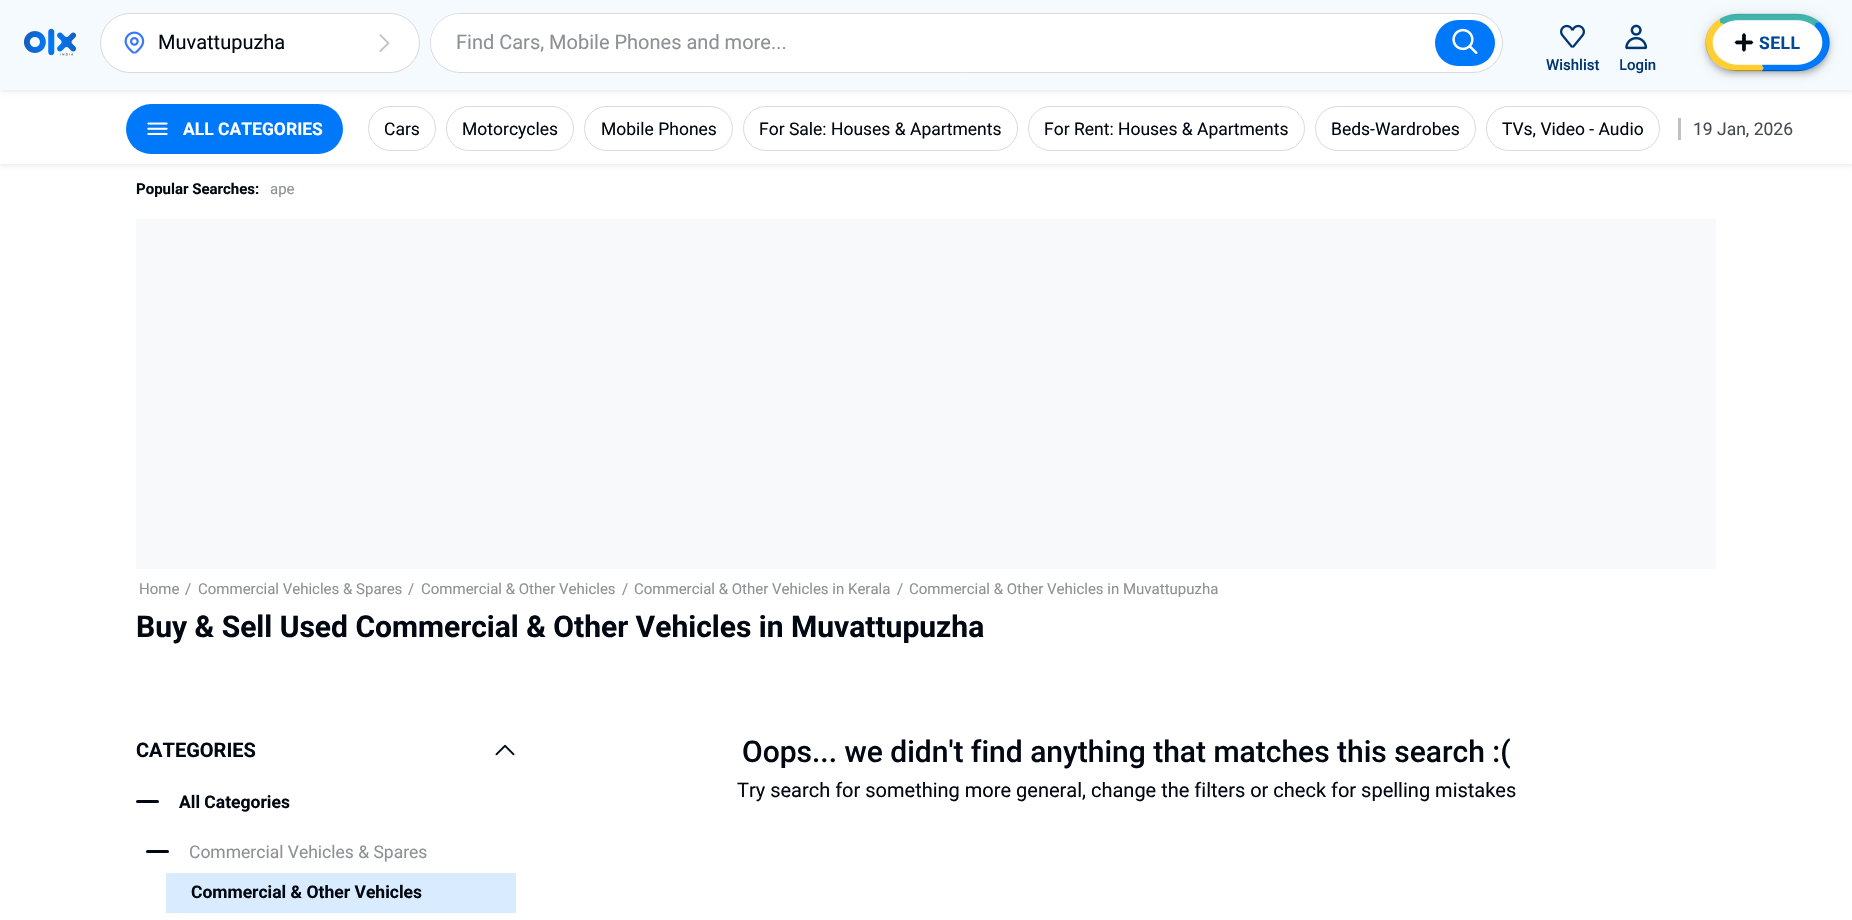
void draw(SkCanvas* canvas) {
	SkPaint paint;
	paint.setAntiAlias(true);
	auto spacedText = [&](const char* s, float x, float y, const SkFont& font, const SkPaint& ink, float letter, float word) {
		std::vector<SkGlyphID> glyphs(font.countText(s, strlen(s), SkTextEncoding::kUTF8));
		std::vector<float> xs(glyphs.size());
		font.textToGlyphs(s, strlen(s), SkTextEncoding::kUTF8, glyphs);
		font.getXPos(glyphs, xs, x);
		float extra = 0;
		for (size_t i = 0; i < glyphs.size(); i++) {
			xs[i] += extra;
			extra += letter + word * (glyphs[i] == font.unicharToGlyph(' '));
		}
		canvas->drawTextBlob(SkTextBlob::MakeFromPosHGlyphs(glyphs, xs, y, font), 0, 0, ink);
	};
	auto svgPath = [&](const char* data, bool evenOdd = false) {
		SkPath result = *SkParsePath::FromSVGString(data);
		if (evenOdd) result.setFillType(SkPathFillType::kEvenOdd);
		return result;
	};
	canvas->clear(0xffffffff);
	paint.setColor(0x1a000000);
	paint.setMaskFilter(SkMaskFilter::MakeBlur(kNormal_SkBlurStyle, 2.5));
	canvas->drawRect(SkRect::MakeXYWH(0, 1, 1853, 164), paint);
	paint.setMaskFilter(nullptr);
	paint.setColor(0xffffffff);
	canvas->drawRect(SkRect::MakeXYWH(0, 90, 1852, 74), paint);
	paint.setColor(0x1a000000);
	paint.setMaskFilter(SkMaskFilter::MakeBlur(kNormal_SkBlurStyle, 2.5));
	canvas->drawRect(SkRect::MakeXYWH(0, 1, 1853, 90), paint);
	paint.setMaskFilter(nullptr);
	paint.setColor(0xfff5faff);
	canvas->drawRect(SkRect::MakeXYWH(0, 0, 1852, 90), paint);
	canvas->drawImageRect(SkImages::DeferredFromEncodedData(SkData::MakeFromFileName("img1.png")), SkRect::MakeXYWH(23, 28, 54, 28), SkSamplingOptions());
	paint.setColor(0xffffffff);
	canvas->drawRoundRect(SkRect::MakeXYWH(100.5, 13.5, 319, 59), 29.5, 29.5, paint);
	paint.setStroke(true);
	paint.setStrokeWidth(1);
	paint.setColor(0xffd9dadb);
	canvas->drawRoundRect(SkRect::MakeXYWH(100.5, 13.5, 319, 59), 29.5, 29.5, paint);
	canvas->drawImageRect(SkImages::DeferredFromEncodedData(SkData::MakeFromFileName("img2.png")), SkRect::MakeXYWH(124, 31, 21, 23), SkSamplingOptions());
	SkFont f1(fontMgr->matchFamilyStyle("Roboto", SkFontStyle::Normal()), 20);
	f1.setSubpixel(true);
	paint.setStroke(false);
	paint.setColor(0xff020812);
	canvas->drawString("Muvattupuzha", 158, 49, f1, paint);
	canvas->drawImageRect(SkImages::DeferredFromEncodedData(SkData::MakeFromFileName("img3.png")), SkRect::MakeXYWH(379, 34, 11, 18), SkSamplingOptions());
	paint.setColor(0xffffffff);
	canvas->drawRoundRect(SkRect::MakeXYWH(430.5, 13.5, 1072, 59), 29.5, 29.5, paint);
	paint.setStroke(true);
	paint.setColor(0xffd9dadb);
	canvas->drawRoundRect(SkRect::MakeXYWH(430.5, 13.5, 1072, 59), 29.5, 29.5, paint);
	paint.setStroke(false);
	paint.setColor(0xffffffff);
	canvas->drawRoundRect(SkRect::MakeXYWH(431, 14, 998, 57), 28.5, 28.5, paint);
	paint.setColor(0xff8d9094);
	canvas->drawString("Find Cars, Mobile Phones and more...", 456, 49, f1, paint);
	paint.setColor(0xff0078fa);
	canvas->drawRoundRect(SkRect::MakeXYWH(1435, 20, 60, 46), 23, 23, paint);
	canvas->drawImageRect(SkImages::DeferredFromEncodedData(SkData::MakeFromFileName("img4.png")), SkRect::MakeXYWH(1452, 28, 26, 26), SkSamplingOptions());
	canvas->drawImageRect(SkImages::DeferredFromEncodedData(SkData::MakeFromFileName("img5.png")), SkRect::MakeXYWH(1705, 13, 125, 59), SkSamplingOptions());
	canvas->drawImageRect(SkImages::DeferredFromEncodedData(SkData::MakeFromFileName("img6.png")), SkRect::MakeXYWH(1734, 33, 20, 19), SkSamplingOptions());
	canvas->save();
	canvas->clipPath(svgPath("M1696 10H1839V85H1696ZM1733.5 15H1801.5C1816.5 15 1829 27.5 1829 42.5C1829 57.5 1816.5 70 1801.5 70H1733.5C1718.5 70 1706 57.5 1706 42.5C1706 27.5 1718.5 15 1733.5 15Z", true), true);
	paint.setColor(0x24000000);
	paint.setMaskFilter(SkMaskFilter::MakeBlur(kNormal_SkBlurStyle, 3));
	canvas->drawRoundRect(SkRect::MakeXYWH(1706, 20, 123, 55), 27.5, 27.5, paint);
	paint.setMaskFilter(nullptr);
	canvas->restore();
	canvas->save();
	canvas->clipPath(svgPath("M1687 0H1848V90H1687ZM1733.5 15H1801.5C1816.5 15 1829 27.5 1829 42.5C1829 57.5 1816.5 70 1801.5 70H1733.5C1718.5 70 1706 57.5 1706 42.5C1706 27.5 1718.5 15 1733.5 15Z", true), true);
	paint.setColor(0x1f000000);
	paint.setMaskFilter(SkMaskFilter::MakeBlur(kNormal_SkBlurStyle, 6));
	canvas->drawRoundRect(SkRect::MakeXYWH(1706, 16, 123, 55), 27.5, 27.5, paint);
	paint.setMaskFilter(nullptr);
	canvas->restore();
	canvas->save();
	canvas->clipPath(svgPath("M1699 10H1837V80H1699ZM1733.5 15H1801.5C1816.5 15 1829 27.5 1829 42.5C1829 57.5 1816.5 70 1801.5 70H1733.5C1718.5 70 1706 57.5 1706 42.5C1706 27.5 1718.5 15 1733.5 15Z", true), true);
	paint.setColor(0x33000000);
	paint.setMaskFilter(SkMaskFilter::MakeBlur(kNormal_SkBlurStyle, 2.5));
	canvas->drawRoundRect(SkRect::MakeXYWH(1708, 19, 120, 52), 26, 26, paint);
	paint.setMaskFilter(nullptr);
	canvas->restore();
	SkFont f2(fontMgr->matchFamilyStyle("Roboto", SkFontStyle::Bold()), 17.5);
	f2.setSubpixel(true);
	paint.setColor(0xff004896);
	spacedText("SELL", 1759, 49, f2, paint, 0.5, 0);
	canvas->drawImageRect(SkImages::DeferredFromEncodedData(SkData::MakeFromFileName("img7.png")), SkRect::MakeXYWH(1560, 24, 25, 24), SkSamplingOptions());
	SkFont f3(fontMgr->matchFamilyStyle("Roboto", SkFontStyle(500, SkFontStyle::kNormal_Width, SkFontStyle::kUpright_Slant)), 15);
	f3.setSubpixel(true);
	paint.setColor(0xff003670);
	canvas->drawString("Wishlist", 1546, 70, f3, paint);
	canvas->drawImageRect(SkImages::DeferredFromEncodedData(SkData::MakeFromFileName("img8.png")), SkRect::MakeXYWH(1625, 24, 23, 26), SkSamplingOptions());
	SkFont f4(fontMgr->matchFamilyStyle("Noto Sans", SkFontStyle(500, SkFontStyle::kNormal_Width, SkFontStyle::kUpright_Slant)), 15);
	f4.setSubpixel(true);
	canvas->drawString("L", 1619, 70, f4, paint);
	canvas->drawString("ogin", 1627, 70, f3, paint);
	paint.setColor(0xff0078fa);
	canvas->drawRoundRect(SkRect::MakeXYWH(126, 104, 217, 50), 25, 25, paint);
	canvas->drawImageRect(SkImages::DeferredFromEncodedData(SkData::MakeFromFileName("img9.png")), SkRect::MakeXYWH(147, 122, 21, 13), SkSamplingOptions());
	paint.setColor(0xffffffff);
	canvas->drawString("ALL CATEGORIES", 183, 135, f2, paint);
	paint.setStroke(true);
	paint.setColor(0xffd9dadb);
	canvas->drawRoundRect(SkRect::MakeXYWH(368.5, 106.5, 67, 44), 22, 22, paint);
	SkFont f5(fontMgr->matchFamilyStyle("Roboto", SkFontStyle::Normal()), 17.5);
	f5.setSubpixel(true);
	paint.setStroke(false);
	paint.setColor(0xff020812);
	canvas->drawString("Cars", 384, 135, f5, paint);
	paint.setStroke(true);
	paint.setColor(0xffd9dadb);
	canvas->drawRoundRect(SkRect::MakeXYWH(446.5, 106.5, 127, 44), 22, 22, paint);
	paint.setStroke(false);
	paint.setColor(0xff020812);
	canvas->drawString("Motorcycles", 462, 135, f5, paint);
	paint.setStroke(true);
	paint.setColor(0xffd9dadb);
	canvas->drawRoundRect(SkRect::MakeXYWH(584.5, 106.5, 148, 44), 22, 22, paint);
	paint.setStroke(false);
	paint.setColor(0xff020812);
	canvas->drawString("Mobile Phones", 601, 135, f5, paint);
	paint.setStroke(true);
	paint.setColor(0xffd9dadb);
	canvas->drawRoundRect(SkRect::MakeXYWH(743.5, 106.5, 274, 44), 22, 22, paint);
	paint.setStroke(false);
	paint.setColor(0xff020812);
	canvas->drawString("For Sale: Houses & Apartments", 759, 135, f5, paint);
	paint.setStroke(true);
	paint.setColor(0xffd9dadb);
	canvas->drawRoundRect(SkRect::MakeXYWH(1028.5, 106.5, 276, 44), 22, 22, paint);
	paint.setStroke(false);
	paint.setColor(0xff020812);
	canvas->drawString("For Rent: Houses & Apartments", 1044, 135, f5, paint);
	paint.setStroke(true);
	paint.setColor(0xffd9dadb);
	canvas->drawRoundRect(SkRect::MakeXYWH(1315.5, 106.5, 160, 44), 22, 22, paint);
	paint.setStroke(false);
	paint.setColor(0xff020812);
	canvas->drawString("Beds-Wardrobes", 1331, 135, f5, paint);
	paint.setStroke(true);
	paint.setColor(0xffd9dadb);
	canvas->drawRoundRect(SkRect::MakeXYWH(1486.5, 106.5, 173, 44), 22, 22, paint);
	paint.setStroke(false);
	paint.setColor(0xff020812);
	canvas->drawString("TVs, Video - Audio", 1502, 135, f5, paint);
	paint.setColor(0xffc0c1c4);
	canvas->drawRect(SkRect::MakeXYWH(1678, 118, 3, 22), paint);
	paint.setColor(0xff464b52);
	canvas->drawString("19 Jan, 2026", 1693, 135, f5, paint);
	SkFont f6(fontMgr->matchFamilyStyle("Roboto", SkFontStyle::Bold()), 15);
	f6.setSubpixel(true);
	paint.setColor(0xff020812);
	canvas->drawString("Popular Searches:", 136, 194, f6, paint);
	SkFont f7(fontMgr->matchFamilyStyle("Roboto", SkFontStyle::Normal()), 15);
	f7.setSubpixel(true);
	paint.setColor(0xff8d9094);
	canvas->drawString("ape", 270, 194, f7, paint);
	paint.setColor(0xfff8f9fa);
	canvas->drawRect(SkRect::MakeXYWH(136, 219, 1580, 350), paint);
	paint.setColor(0xff8d9094);
	canvas->drawString("Home", 139, 594, f7, paint);
	canvas->drawString("/", 185, 594, f7, paint);
	canvas->drawString("Commercial Vehicles & Spares", 198, 594, f7, paint);
	canvas->drawString("/", 408, 594, f7, paint);
	canvas->drawString("Commercial & Other Vehicles", 421, 594, f7, paint);
	canvas->drawString("/", 622, 594, f7, paint);
	canvas->drawString("Commercial & Other Vehicles in Kerala", 634, 594, f7, paint);
	canvas->drawString("/", 897, 594, f7, paint);
	canvas->drawString("Commercial & Other Vehicles in Muvattupuzha", 909, 594, f7, paint);
	SkFont f8(fontMgr->matchFamilyStyle("Roboto", SkFontStyle::Bold()), 30);
	f8.setSubpixel(true);
	paint.setColor(0xff020812);
	canvas->drawString("Buy & Sell Used Commercial & Other Vehicles in Muvattupuzha", 136, 637, f8, paint);
	SkFont f9(fontMgr->matchFamilyStyle("Roboto", SkFontStyle::Bold()), 20);
	f9.setSubpixel(true);
	canvas->drawString("CATEGORIES", 136, 757, f9, paint);
	canvas->drawImageRect(SkImages::DeferredFromEncodedData(SkData::MakeFromFileName("img10.png")), SkRect::MakeXYWH(495, 744, 20, 12), SkSamplingOptions());
	canvas->drawRoundRect(SkRect::MakeXYWH(136, 800, 23, 3), 1.5, 1.5, paint);
	canvas->drawString("All Categories", 179, 808, f2, paint);
	canvas->drawRoundRect(SkRect::MakeXYWH(146, 850, 23, 3), 1.5, 1.5, paint);
	paint.setColor(0xff8d9094);
	canvas->drawString("Commercial Vehicles & Spares", 189, 858, f5, paint);
	paint.setColor(0xffd9ebfe);
	canvas->drawRect(SkRect::MakeXYWH(166, 873, 350, 40), paint);
	paint.setColor(0xff020812);
	canvas->drawString("Commercial & Other Vehicles", 191, 898, f2, paint);
	SkFont f10(fontMgr->matchFamilyStyle("Roboto", SkFontStyle(500, SkFontStyle::kNormal_Width, SkFontStyle::kUpright_Slant)), 30);
	f10.setSubpixel(true);
	canvas->drawString("Oops... we didn't find anything that matches this search :(", 742, 762, f10, paint);
	canvas->drawString("Try search for something more general, change the filters or check for spelling mistakes", 737, 797, f1, paint);
}
